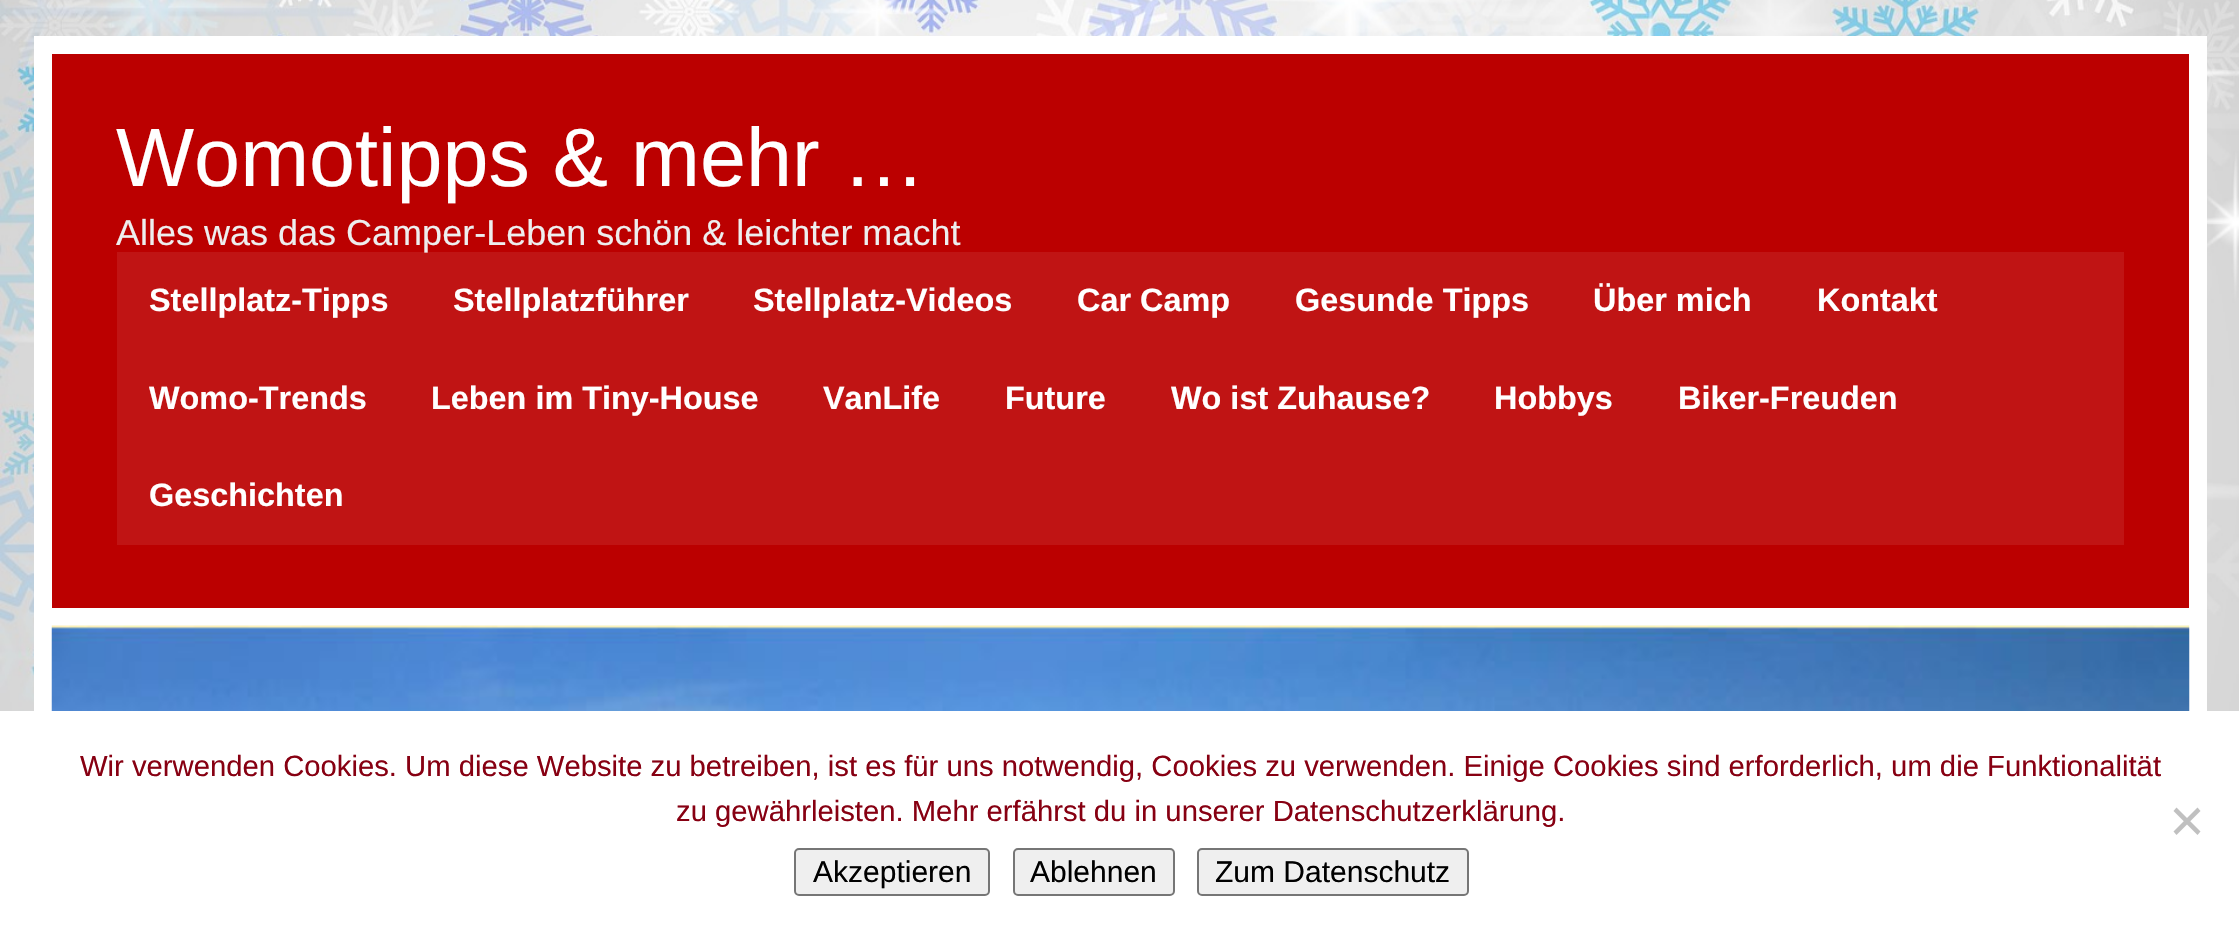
void draw(SkCanvas* canvas) {
	SkPaint paint;
	paint.setAntiAlias(true);
	auto svgPath = [&](const char* data, bool evenOdd = false) {
		SkPath result = *SkParsePath::FromSVGString(data);
		if (evenOdd) result.setFillType(SkPathFillType::kEvenOdd);
		return result;
	};
	canvas->clear(0xffffffff);
	canvas->drawImageRect(SkImages::DeferredFromEncodedData(SkData::MakeFromFileName("img1.png")), SkRect::MakeXYWH(0, 0, 2239, 711), SkSamplingOptions());
	paint.setColor(0xffffffff);
	canvas->drawRect(SkRect::MakeXYWH(34, 36, 2173, 675), paint);
	paint.setColor(0xffbb0000);
	canvas->drawRect(SkRect::MakeXYWH(52, 54, 2137, 554), paint);
	SkFont f1(fontMgr->matchFamilyStyle("Liberation Sans", SkFontStyle::Normal()), 82.75);
	f1.setSubpixel(true);
	paint.setColor(0xffffffff);
	canvas->drawString("Womotipps & mehr …", 116, 186, f1, paint);
	SkFont f2(fontMgr->matchFamilyStyle("Liberation Sans", SkFontStyle::Normal()), 36);
	f2.setSubpixel(true);
	paint.setColor(0xffeeeeee);
	canvas->drawString("Alles was das Camper-Leben schön & leichter macht", 116, 245, f2, paint);
	paint.setColor(0x14ffffff);
	canvas->drawRect(SkRect::MakeXYWH(117, 252, 2007, 293), paint);
	SkFont f3(fontMgr->matchFamilyStyle("Liberation Sans", SkFontStyle::Bold()), 32.4);
	f3.setSubpixel(true);
	paint.setColor(0xffffffff);
	canvas->drawString("Stellplatz-Tipps", 149, 311, f3, paint);
	canvas->drawString("Stellplatzführer", 453, 311, f3, paint);
	canvas->drawString("Stellplatz-Videos", 753, 311, f3, paint);
	canvas->drawString("Car Camp", 1077, 311, f3, paint);
	canvas->drawString("Gesunde Tipps", 1295, 311, f3, paint);
	canvas->drawString("Über mich", 1593, 311, f3, paint);
	canvas->drawString("Kontakt", 1817, 311, f3, paint);
	canvas->drawString("Womo-Trends", 149, 409, f3, paint);
	canvas->drawString("Leben im Tiny-House", 431, 409, f3, paint);
	canvas->drawString("VanLife", 823, 409, f3, paint);
	canvas->drawString("Future", 1005, 409, f3, paint);
	canvas->drawString("Wo ist Zuhause?", 1171, 409, f3, paint);
	canvas->drawString("Hobbys", 1494, 409, f3, paint);
	canvas->drawString("Biker-Freuden", 1678, 409, f3, paint);
	canvas->drawString("Geschichten", 149, 506, f3, paint);
	canvas->drawImageRect(SkImages::DeferredFromEncodedData(SkData::MakeFromFileName("img2.png")), SkRect::MakeXYWH(51, 625, 2139, 86), SkSamplingOptions());
	SkFont f4(fontMgr->matchFamilyStyle("Liberation Sans", SkFontStyle::Normal()), 29.25);
	f4.setSubpixel(true);
	paint.setColor(0xff870012);
	canvas->drawString("Wir verwenden Cookies. Um diese Website zu betreiben, ist es für uns notwendig, Cookies zu verwenden. Einige Cookies sind erforderlich, um die Funktionalität", 80, 776, f4, paint);
	canvas->drawString("zu gewährleisten. Mehr erfährst du in unserer Datenschutzerklärung.", 676, 821, f4, paint);
	paint.setColor(0xffc0c0c0);
	canvas->drawPath(svgPath("M2197.5 807.5L2200.5 811L2176.5 835L2173.5 831.5Z"), paint);
	canvas->drawPath(svgPath("M2173.5 811L2176.5 807.5L2200.5 831.5L2197.5 835Z"), paint);
	paint.setColor(0xffefefef);
	canvas->drawRoundRect(SkRect::MakeXYWH(795, 849, 194, 46), 4, 4, paint);
	paint.setStroke(true);
	paint.setStrokeWidth(2);
	paint.setColor(0xff767676);
	canvas->drawRoundRect(SkRect::MakeXYWH(795, 849, 194, 46), 4, 4, paint);
	SkFont f5(fontMgr->matchFamilyStyle("Liberation Sans", SkFontStyle::Normal()), 30);
	f5.setSubpixel(true);
	paint.setStroke(false);
	paint.setColor(0xff000000);
	canvas->drawString("Akzeptieren", 813, 882, f5, paint);
	paint.setColor(0xffefefef);
	canvas->drawRoundRect(SkRect::MakeXYWH(1014, 849, 160, 46), 4, 4, paint);
	paint.setStroke(true);
	paint.setColor(0xff767676);
	canvas->drawRoundRect(SkRect::MakeXYWH(1014, 849, 160, 46), 4, 4, paint);
	paint.setStroke(false);
	paint.setColor(0xff000000);
	canvas->drawString("Ablehnen", 1030, 882, f5, paint);
	paint.setColor(0xffefefef);
	canvas->drawRoundRect(SkRect::MakeXYWH(1198, 849, 270, 46), 4, 4, paint);
	paint.setStroke(true);
	paint.setColor(0xff767676);
	canvas->drawRoundRect(SkRect::MakeXYWH(1198, 849, 270, 46), 4, 4, paint);
	paint.setStroke(false);
	paint.setColor(0xff000000);
	canvas->drawString("Zum Datenschutz", 1215, 882, f5, paint);
}
